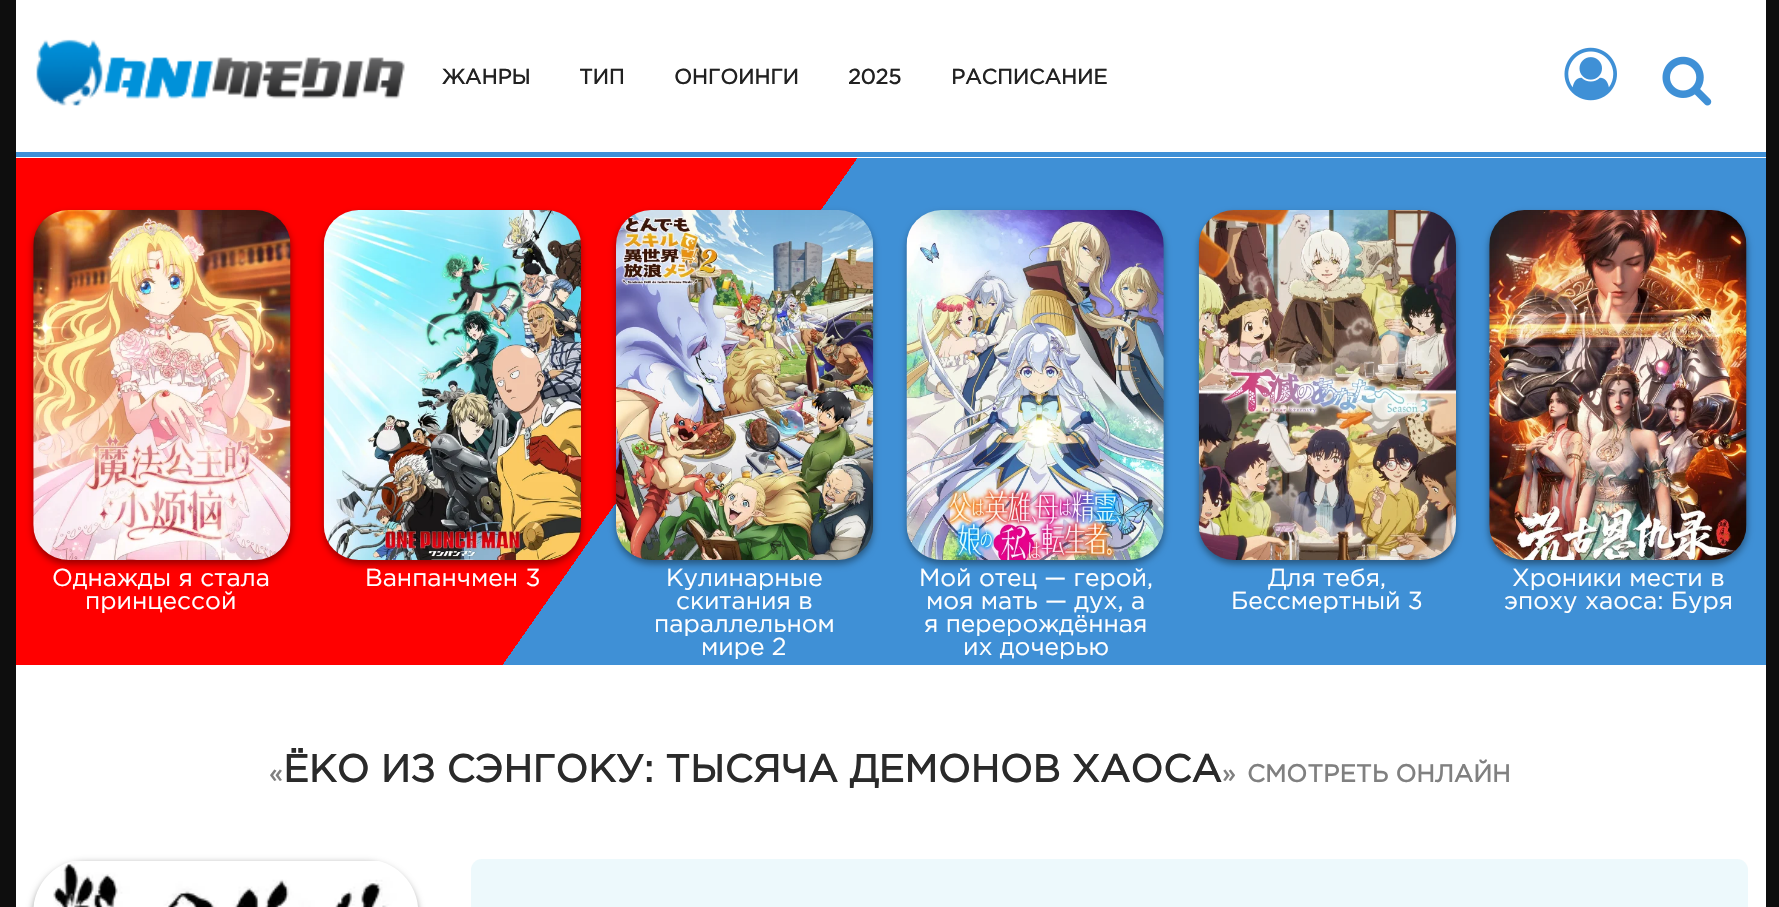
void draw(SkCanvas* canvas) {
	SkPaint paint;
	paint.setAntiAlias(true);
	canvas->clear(0xff0e0e0e);
	paint.setColor(0xffffffff);
	canvas->drawRect(SkRect::MakeXYWH(16, 0, 1750, 158), paint);
	paint.setColor(0xff3f90d6);
	canvas->drawRect(SkRect::MakeXYWH(16, 152, 1750, 5), paint);
	canvas->drawImageRect(SkImages::DeferredFromEncodedData(SkData::MakeFromFileName("img1.png")), SkRect::MakeXYWH(36, 39, 369, 67), SkSamplingOptions());
	SkFont f1(fontMgr->matchFamilyStyle("Gotham", SkFontStyle::Bold()), 21);
	f1.setSubpixel(true);
	paint.setColor(0xff212121);
	canvas->drawString("ЖАНРЫ", 442, 84, f1, paint);
	canvas->drawString("ТИП", 579, 84, f1, paint);
	canvas->drawString("ОНГОИНГИ", 674, 84, f1, paint);
	canvas->drawString("2025", 848, 84, f1, paint);
	canvas->drawString("РАСПИСАНИЕ", 951, 84, f1, paint);
	canvas->drawImageRect(SkImages::DeferredFromEncodedData(SkData::MakeFromFileName("img2.png")), SkRect::MakeXYWH(1564, 47, 53, 54), SkSamplingOptions());
	canvas->drawImageRect(SkImages::DeferredFromEncodedData(SkData::MakeFromFileName("img3.png")), SkRect::MakeXYWH(1662, 56, 50, 50), SkSamplingOptions());
	paint.setColor(0xffffffff);
	canvas->drawRect(SkRect::MakeXYWH(16, 665, 1750, 242), paint);
	{
		const SkColor colors[] = {0xff3f90d6, 0xff3f90d6, 0xffff0000, 0xffff0000};
		const float stops[] = {0, 0.6, 0.6, 1};
		const SkPoint ends[] = {{1597, 906}, {184, -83}};
		paint.setShader(SkGradientShader::MakeLinear(ends, colors, stops, 4, SkTileMode::kClamp));
		paint.setAlpha(255);
	}
	canvas->drawRect(SkRect::MakeXYWH(16, 158, 1750, 507), paint);
	paint.setShader(nullptr);
	paint.setColor(0x66000000);
	paint.setMaskFilter(SkMaskFilter::MakeBlur(kNormal_SkBlurStyle, 3.5));
	canvas->drawRoundRect(SkRect::MakeXYWH(33, 214, 258, 350), 35, 35, paint);
	paint.setMaskFilter(nullptr);
	canvas->drawImageRect(SkImages::DeferredFromEncodedData(SkData::MakeFromFileName("img4.png")), SkRect::MakeXYWH(33, 210, 258, 350), SkSamplingOptions());
	SkFont f2(fontMgr->matchFamilyStyle("Gotham", SkFontStyle::Normal()), 24.5);
	f2.setSubpixel(true);
	paint.setColor(0xffffffff);
	canvas->drawString("Однажды я стала", 52, 586, f2, paint);
	canvas->drawString("принцессой", 85, 609, f2, paint);
	paint.setColor(0x66000000);
	paint.setMaskFilter(SkMaskFilter::MakeBlur(kNormal_SkBlurStyle, 3.5));
	canvas->drawRoundRect(SkRect::MakeXYWH(324, 214, 257, 350), 35, 35, paint);
	paint.setMaskFilter(nullptr);
	canvas->drawImageRect(SkImages::DeferredFromEncodedData(SkData::MakeFromFileName("img5.png")), SkRect::MakeXYWH(323, 210, 258, 350), SkSamplingOptions());
	paint.setColor(0xffffffff);
	canvas->drawString("Ванпанчмен 3", 365, 586, f2, paint);
	paint.setColor(0x66000000);
	paint.setMaskFilter(SkMaskFilter::MakeBlur(kNormal_SkBlurStyle, 3.5));
	canvas->drawRoundRect(SkRect::MakeXYWH(616, 214, 257, 350), 35, 35, paint);
	paint.setMaskFilter(nullptr);
	canvas->drawImageRect(SkImages::DeferredFromEncodedData(SkData::MakeFromFileName("img6.png")), SkRect::MakeXYWH(616, 210, 258, 350), SkSamplingOptions());
	paint.setColor(0xffffffff);
	canvas->drawString("Кулинарные", 666, 586, f2, paint);
	canvas->drawString("скитания в", 676, 609, f2, paint);
	canvas->drawString("параллельном", 654, 632, f2, paint);
	canvas->drawString("мире 2", 701, 655, f2, paint);
	paint.setColor(0x66000000);
	paint.setMaskFilter(SkMaskFilter::MakeBlur(kNormal_SkBlurStyle, 3.5));
	canvas->drawRoundRect(SkRect::MakeXYWH(907, 214, 257, 350), 35, 35, paint);
	paint.setMaskFilter(nullptr);
	canvas->drawImageRect(SkImages::DeferredFromEncodedData(SkData::MakeFromFileName("img7.png")), SkRect::MakeXYWH(906, 210, 258, 350), SkSamplingOptions());
	paint.setColor(0xffffffff);
	canvas->drawString("Мой отец — герой,", 919, 586, f2, paint);
	canvas->drawString("моя мать — дух, а", 926, 609, f2, paint);
	canvas->drawString("я перерождённая", 924, 632, f2, paint);
	canvas->drawString("их дочерью", 963, 655, f2, paint);
	paint.setColor(0x66000000);
	paint.setMaskFilter(SkMaskFilter::MakeBlur(kNormal_SkBlurStyle, 3.5));
	canvas->drawRoundRect(SkRect::MakeXYWH(1199, 214, 257, 350), 35, 35, paint);
	paint.setMaskFilter(nullptr);
	canvas->drawImageRect(SkImages::DeferredFromEncodedData(SkData::MakeFromFileName("img8.png")), SkRect::MakeXYWH(1198, 210, 258, 350), SkSamplingOptions());
	paint.setColor(0xffffffff);
	canvas->drawString("Для тебя,", 1268, 586, f2, paint);
	canvas->drawString("Бессмертный 3", 1231, 609, f2, paint);
	paint.setColor(0x66000000);
	paint.setMaskFilter(SkMaskFilter::MakeBlur(kNormal_SkBlurStyle, 3.5));
	canvas->drawRoundRect(SkRect::MakeXYWH(1489, 214, 258, 350), 35, 35, paint);
	paint.setMaskFilter(nullptr);
	canvas->drawImageRect(SkImages::DeferredFromEncodedData(SkData::MakeFromFileName("img9.png")), SkRect::MakeXYWH(1489, 210, 258, 350), SkSamplingOptions());
	paint.setColor(0xffffffff);
	canvas->drawString("Хроники мести в", 1512, 586, f2, paint);
	canvas->drawString("эпоху хаоса: Буря", 1504, 609, f2, paint);
	SkFont f3(fontMgr->matchFamilyStyle("Gotham", SkFontStyle::Bold()), 24.5);
	f3.setSubpixel(true);
	paint.setColor(0xff808080);
	canvas->drawString("«", 269, 782, f3, paint);
	SkFont f4(fontMgr->matchFamilyStyle("Gotham", SkFontStyle::Bold()), 38.5);
	f4.setSubpixel(true);
	paint.setColor(0xff2a2a2a);
	canvas->drawString("ЁКО ИЗ СЭНГОКУ: ТЫСЯЧА ДЕМОНОВ ХАОСА", 283, 782, f4, paint);
	paint.setColor(0xff808080);
	canvas->drawString("»", 1222, 782, f3, paint);
	canvas->drawString("СМОТРЕТЬ ОНЛАЙН", 1247, 782, f3, paint);
	paint.setColor(0x66000000);
	paint.setMaskFilter(SkMaskFilter::MakeBlur(kNormal_SkBlurStyle, 3.5));
	canvas->drawRoundRect(SkRect::MakeXYWH(33, 863, 385, 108), 53, 53, paint);
	paint.setMaskFilter(nullptr);
	canvas->drawImageRect(SkImages::DeferredFromEncodedData(SkData::MakeFromFileName("img10.png")), SkRect::MakeXYWH(33, 861, 385, 46), SkSamplingOptions());
	paint.setColor(0xffedf9fc);
	canvas->drawRoundRect(SkRect::MakeXYWH(471, 859, 1277, 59), 11, 11, paint);
}
